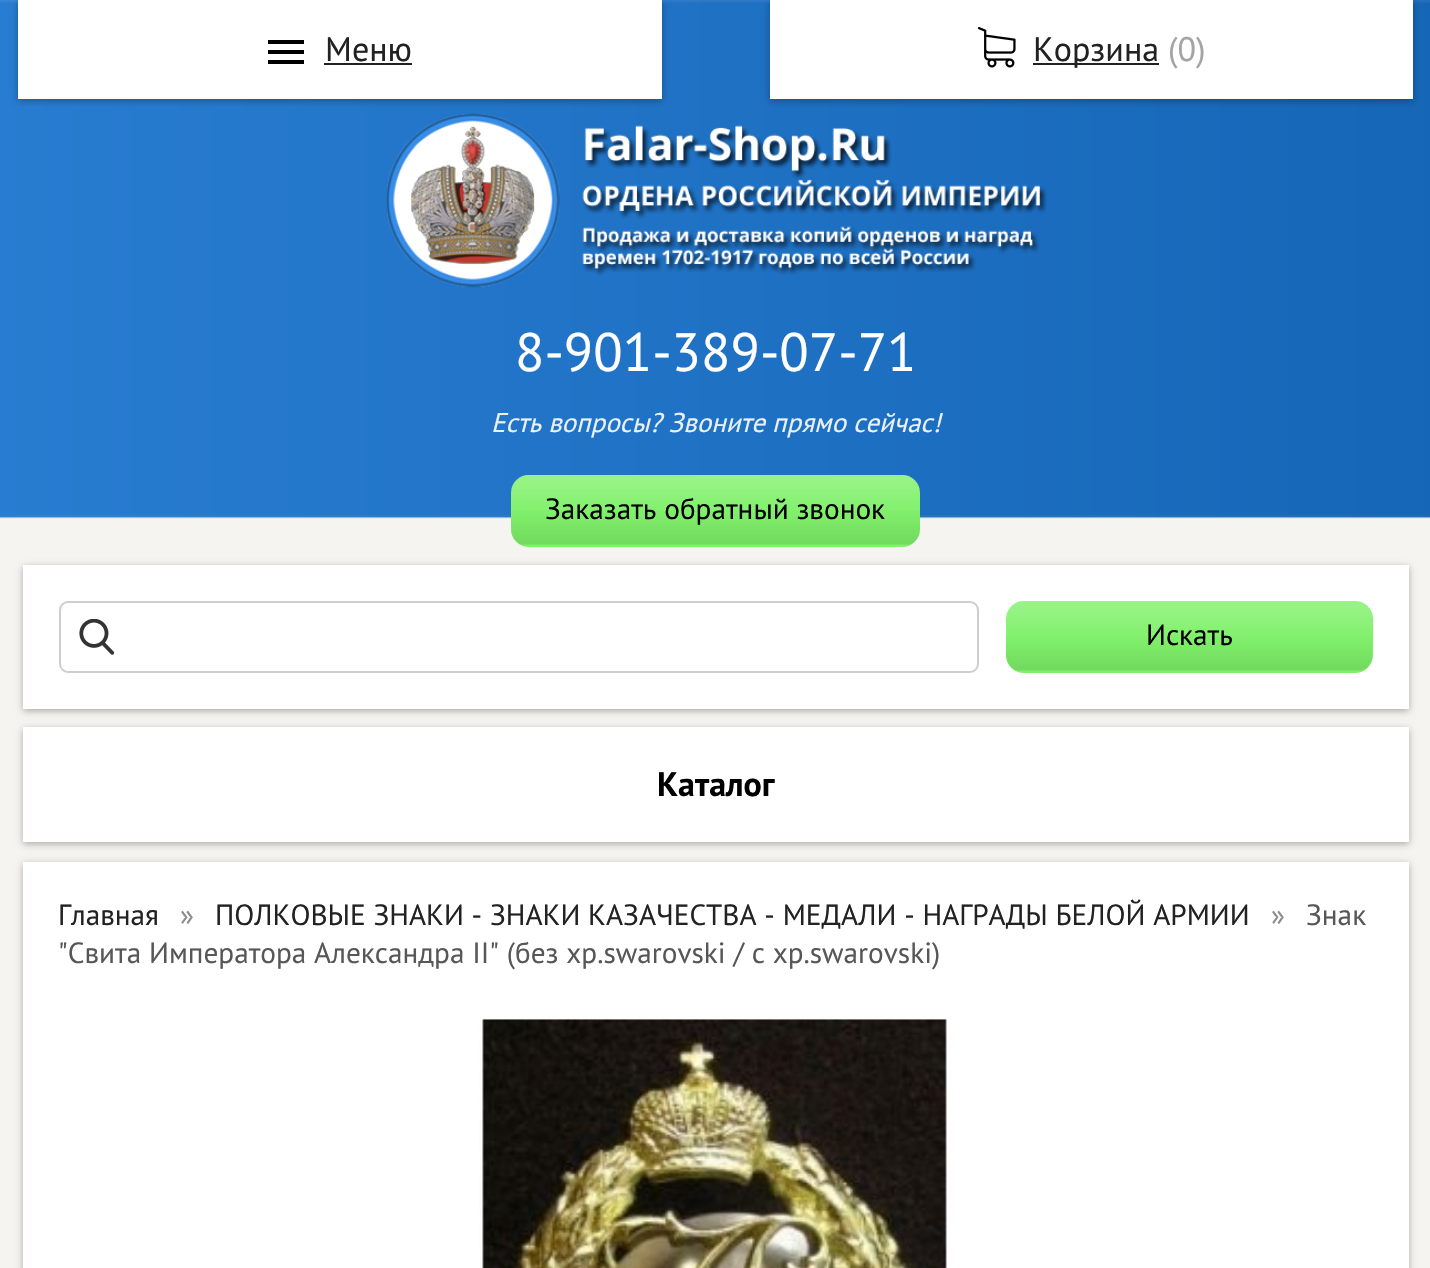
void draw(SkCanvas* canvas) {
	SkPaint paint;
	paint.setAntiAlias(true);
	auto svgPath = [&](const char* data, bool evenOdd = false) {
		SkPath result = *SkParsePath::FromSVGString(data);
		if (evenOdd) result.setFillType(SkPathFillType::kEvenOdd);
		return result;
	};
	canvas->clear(0xfff5f4f0);
	canvas->drawImageRect(SkImages::DeferredFromEncodedData(SkData::MakeFromFileName("img2.png")), SkRect::MakeXYWH(0, 0, 1430, 519), SkSamplingOptions());
	paint.setColor(0x4d000000);
	paint.setMaskFilter(SkMaskFilter::MakeBlur(kNormal_SkBlurStyle, 3.5));
	canvas->drawRect(SkRect::MakeXYWH(18, 2, 644, 99), paint);
	paint.setMaskFilter(nullptr);
	paint.setColor(0xffffffff);
	canvas->drawRect(SkRect::MakeXYWH(18, 0, 644, 99), paint);
	paint.setColor(0xff000000);
	canvas->drawPath(svgPath("M268 64H304V60H268ZM268 54H304V50H268ZM268 40V44H304V40Z"), paint);
	SkFont f1(fontMgr->matchFamilyStyle("PT Sans", SkFontStyle::Normal()), 34);
	f1.setSubpixel(true);
	paint.setColor(0xff222222);
	canvas->drawString("Меню", 325, 61, f1, paint);
	canvas->drawRect(SkRect::MakeXYWH(324, 63, 88, 2), paint);
	paint.setColor(0x4d000000);
	paint.setMaskFilter(SkMaskFilter::MakeBlur(kNormal_SkBlurStyle, 3.5));
	canvas->drawRect(SkRect::MakeXYWH(770, 2, 643, 99), paint);
	paint.setMaskFilter(nullptr);
	paint.setColor(0xffffffff);
	canvas->drawRect(SkRect::MakeXYWH(770, 0, 643, 99), paint);
	canvas->drawImageRect(SkImages::DeferredFromEncodedData(SkData::MakeFromFileName("img1.png")), SkRect::MakeXYWH(978, 27, 38, 41), SkSamplingOptions());
	paint.setColor(0xff222222);
	canvas->drawRect(SkRect::MakeXYWH(1033, 63, 126, 2), paint);
	canvas->drawString("Корзина", 1033, 61, f1, paint);
	paint.setColor(0xffa4a4a4);
	canvas->drawString("(0)", 1168, 61, f1, paint);
	canvas->drawImageRect(SkImages::DeferredFromEncodedData(SkData::MakeFromFileName("img3.png")), SkRect::MakeXYWH(386, 113, 661, 175), SkSamplingOptions());
	SkFont f2(fontMgr->matchFamilyStyle("PT Sans", SkFontStyle::Normal()), 54);
	f2.setSubpixel(true);
	paint.setColor(0xffffffff);
	canvas->drawString("8-901-389-07-71", 515, 371, f2, paint);
	SkFont f3(fontMgr->matchFamilyStyle("PT Sans", SkFontStyle::Italic()), 27);
	f3.setSubpixel(true);
	paint.setColor(0xffe9f1f9);
	canvas->drawString("Есть вопросы? Звоните прямо сейчас!", 491, 432, f3, paint);
	paint.setColor(0xff80f16a);
	canvas->drawRoundRect(SkRect::MakeXYWH(511, 475, 409, 72), 18, 18, paint);
	canvas->drawImageRect(SkImages::DeferredFromEncodedData(SkData::MakeFromFileName("img4.png")), SkRect::MakeXYWH(511, 475, 409, 70), SkSamplingOptions());
	SkFont f4(fontMgr->matchFamilyStyle("PT Sans", SkFontStyle::Normal()), 29.25);
	f4.setSubpixel(true);
	paint.setColor(0xff000000);
	canvas->drawString("Заказать обратный звонок", 545, 519, f4, paint);
	paint.setColor(0x4d000000);
	paint.setMaskFilter(SkMaskFilter::MakeBlur(kNormal_SkBlurStyle, 3.5));
	canvas->drawRect(SkRect::MakeXYWH(23, 567, 1386, 144), paint);
	paint.setMaskFilter(nullptr);
	paint.setColor(0xffffffff);
	canvas->drawRect(SkRect::MakeXYWH(23, 565, 1386, 144), paint);
	canvas->drawImageRect(SkImages::DeferredFromEncodedData(SkData::MakeFromFileName("img5.png")), SkRect::MakeXYWH(79, 619, 36, 36), SkSamplingOptions());
	paint.setStroke(true);
	paint.setStrokeWidth(2);
	paint.setColor(0xffcecece);
	canvas->drawRoundRect(SkRect::MakeXYWH(60, 602, 918, 70), 8, 8, paint);
	paint.setStroke(false);
	paint.setColor(0xff80f16a);
	canvas->drawRoundRect(SkRect::MakeXYWH(1006, 601, 367, 72), 18, 18, paint);
	canvas->drawImageRect(SkImages::DeferredFromEncodedData(SkData::MakeFromFileName("img6.png")), SkRect::MakeXYWH(1006, 601, 367, 70), SkSamplingOptions());
	paint.setColor(0xff000000);
	canvas->drawString("Искать", 1146, 645, f4, paint);
	paint.setColor(0x4d000000);
	paint.setMaskFilter(SkMaskFilter::MakeBlur(kNormal_SkBlurStyle, 3.5));
	canvas->drawRect(SkRect::MakeXYWH(23, 729, 1386, 115), paint);
	paint.setMaskFilter(nullptr);
	paint.setColor(0xffffffff);
	canvas->drawRect(SkRect::MakeXYWH(23, 727, 1386, 115), paint);
	SkFont f5(fontMgr->matchFamilyStyle("PT Sans", SkFontStyle::Bold()), 34);
	f5.setSubpixel(true);
	paint.setColor(0xff000000);
	canvas->drawString("Каталог", 657, 796, f5, paint);
	paint.setColor(0x4d000000);
	paint.setMaskFilter(SkMaskFilter::MakeBlur(kNormal_SkBlurStyle, 3.5));
	canvas->drawRect(SkRect::MakeXYWH(23, 864, 1386, 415), paint);
	paint.setMaskFilter(nullptr);
	paint.setColor(0xffffffff);
	canvas->drawRect(SkRect::MakeXYWH(23, 862, 1386, 406), paint);
	paint.setColor(0xff222222);
	canvas->drawString("Главная", 58, 925, f4, paint);
	paint.setColor(0xff8c8c8c);
	canvas->drawString("»", 180, 925, f4, paint);
	paint.setColor(0xff222222);
	canvas->drawString("ПОЛКОВЫЕ ЗНАКИ - ЗНАКИ КАЗАЧЕСТВА - МЕДАЛИ - НАГРАДЫ БЕЛОЙ АРМИИ", 215, 925, f4, paint);
	paint.setColor(0xff8c8c8c);
	canvas->drawString("»", 1271, 925, f4, paint);
	paint.setColor(0xff575757);
	canvas->drawString("Знак", 1306, 925, f4, paint);
	canvas->drawString("\"Свита Императора Александра II\" (без хр.swarovski / с хр.swarovski)", 58, 963, f4, paint);
	canvas->drawImageRect(SkImages::DeferredFromEncodedData(SkData::MakeFromFileName("img7.png")), SkRect::MakeXYWH(479, 1019, 468, 249), SkSamplingOptions());
}
